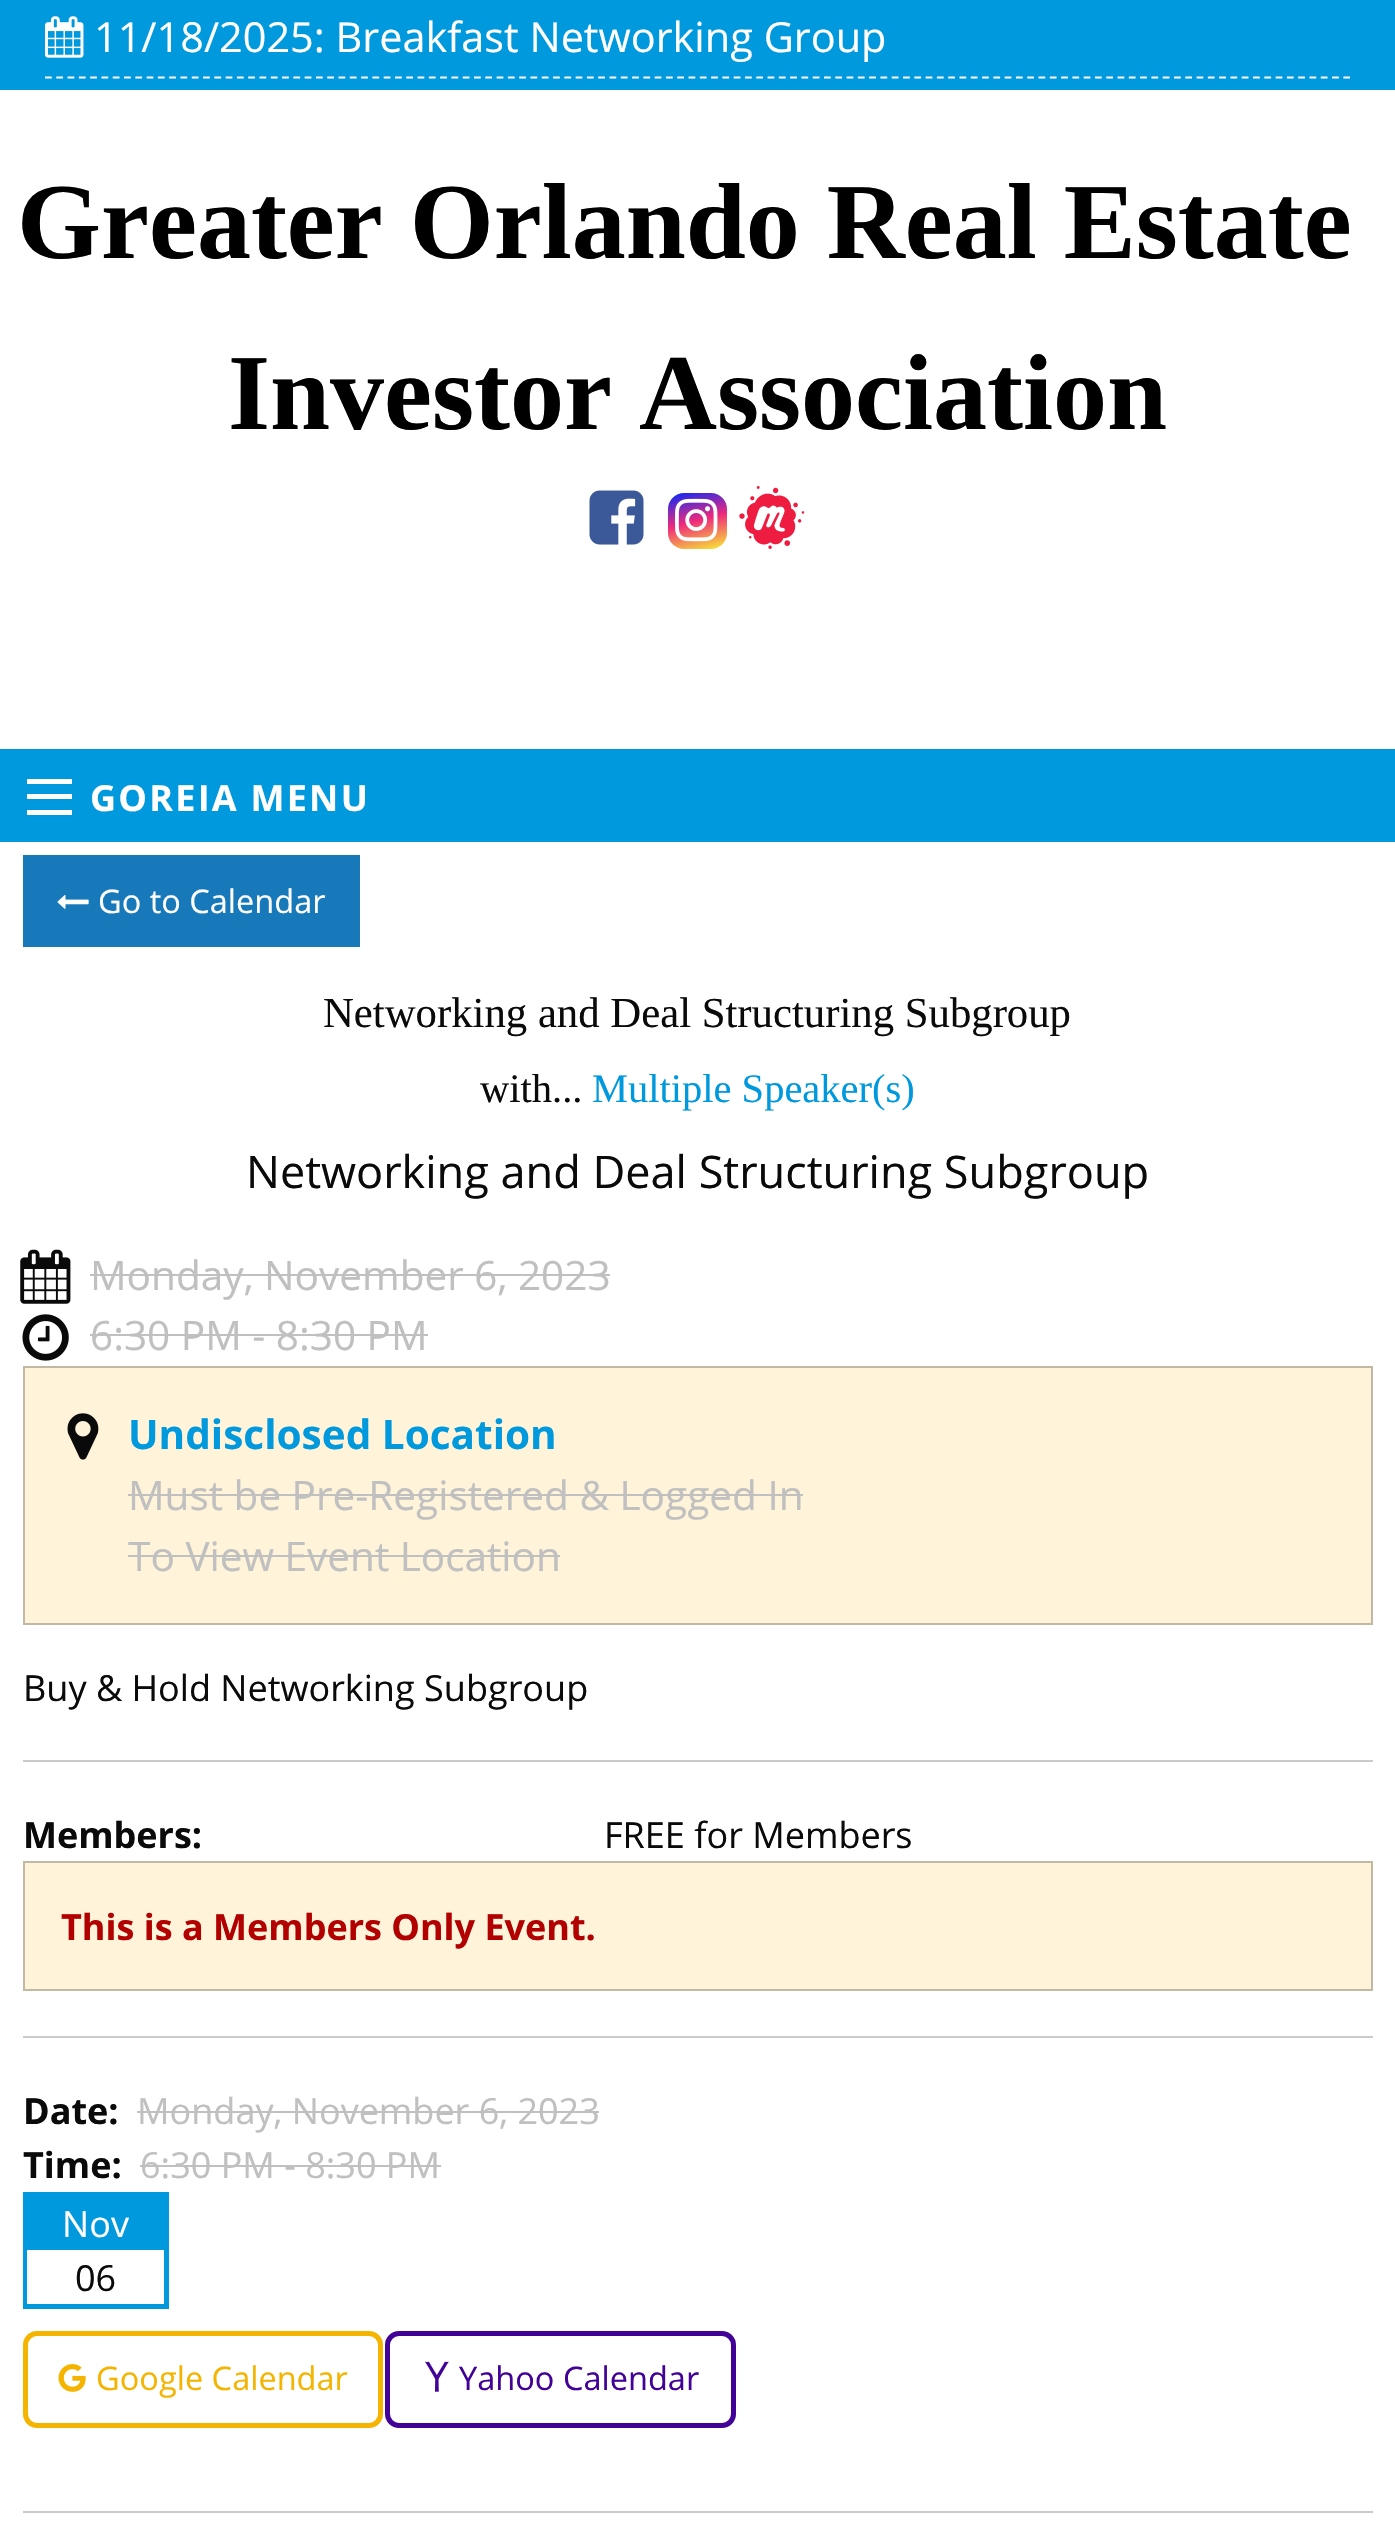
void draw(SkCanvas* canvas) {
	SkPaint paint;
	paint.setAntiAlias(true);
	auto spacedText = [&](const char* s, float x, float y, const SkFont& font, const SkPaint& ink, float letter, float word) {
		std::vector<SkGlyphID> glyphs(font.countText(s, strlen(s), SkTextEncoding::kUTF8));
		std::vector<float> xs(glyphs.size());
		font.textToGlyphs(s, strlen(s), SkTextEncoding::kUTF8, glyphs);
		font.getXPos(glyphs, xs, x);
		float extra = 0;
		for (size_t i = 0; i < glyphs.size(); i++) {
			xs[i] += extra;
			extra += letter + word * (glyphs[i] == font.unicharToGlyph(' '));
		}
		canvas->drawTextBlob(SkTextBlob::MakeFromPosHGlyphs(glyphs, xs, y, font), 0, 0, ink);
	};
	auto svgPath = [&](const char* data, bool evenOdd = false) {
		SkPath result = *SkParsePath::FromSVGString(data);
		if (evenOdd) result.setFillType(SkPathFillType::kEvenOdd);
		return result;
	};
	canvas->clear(0xffffffff);
	paint.setColor(0xff0099dd);
	canvas->drawRect(SkRect::MakeXYWH(0, 0, 1395, 90), paint);
	paint.setStroke(true);
	paint.setStrokeWidth(2.2);
	paint.setColor(0xfffefefe);
	paint.setPathEffect(SkDashPathEffect::Make({{6.75f, 4.54f}}, 0));
	canvas->drawPath(svgPath("M45 77.5H1350"), paint);
	paint.setPathEffect(nullptr);
	canvas->drawImageRect(SkImages::DeferredFromEncodedData(SkData::MakeFromFileName("img1.png")), SkRect::MakeXYWH(45, 16, 39, 42), SkSamplingOptions());
	SkFont f1(fontMgr->matchFamilyStyle("Open Sans", SkFontStyle::Normal()), 41.4);
	f1.setSubpixel(true);
	paint.setStroke(false);
	paint.setColor(0xffffffff);
	canvas->drawString("11/18/2025: Breakfast Networking Group", 94, 52, f1, paint);
	SkFont f2(fontMgr->matchFamilyStyle("Liberation Serif", SkFontStyle::Bold()), 108);
	f2.setSubpixel(true);
	paint.setColor(0xff000000);
	canvas->drawString("Greater Orlando Real Estate", 17, 258, f2, paint);
	canvas->drawString("Investor Association", 228, 429, f2, paint);
	canvas->drawImageRect(SkImages::DeferredFromEncodedData(SkData::MakeFromFileName("img2.png")), SkRect::MakeXYWH(589, 490, 55, 55), SkSamplingOptions());
	{
		const SkColor colors[] = {0xfff9ed32, 0xffee2a7b, 0xff002aff};
		const float stops[] = {0, 0.5, 1};
		const SkPoint ends[] = {{706, 554}, {689, 487}};
		paint.setShader(SkGradientShader::MakeLinear(ends, colors, stops, 3, SkTileMode::kClamp));
		paint.setAlpha(255);
	}
	canvas->drawRoundRect(SkRect::MakeXYWH(668, 493, 59, 56), 16, 16, paint);
	canvas->drawImageRect(SkImages::DeferredFromEncodedData(SkData::MakeFromFileName("img3.png")), SkRect::MakeXYWH(675, 498, 43, 44), SkSamplingOptions());
	canvas->drawImageRect(SkImages::DeferredFromEncodedData(SkData::MakeFromFileName("img4.png")), SkRect::MakeXYWH(739, 486, 66, 63), SkSamplingOptions());
	paint.setShader(nullptr);
	paint.setColor(0xff0099dd);
	canvas->drawRect(SkRect::MakeXYWH(0, 749, 1395, 93), paint);
	paint.setColor(0xfffefefe);
	canvas->drawRect(SkRect::MakeXYWH(27, 810, 45, 5), paint);
	canvas->drawRect(SkRect::MakeXYWH(27, 794, 45, 5), paint);
	canvas->drawRect(SkRect::MakeXYWH(27, 779, 45, 5), paint);
	SkFont f3(fontMgr->matchFamilyStyle("Open Sans", SkFontStyle::Bold()), 36);
	f3.setSubpixel(true);
	paint.setColor(0xffffffff);
	spacedText("GOREIA MENU", 90, 811, f3, paint, 2.25, 0);
	paint.setColor(0xff1779ba);
	canvas->drawRect(SkRect::MakeXYWH(23, 855, 337, 92), paint);
	canvas->drawImageRect(SkImages::DeferredFromEncodedData(SkData::MakeFromFileName("img5.png")), SkRect::MakeXYWH(57, 895, 32, 14), SkSamplingOptions());
	SkFont f4(fontMgr->matchFamilyStyle("Open Sans", SkFontStyle::Normal()), 32.5);
	f4.setSubpixel(true);
	paint.setColor(0xffffffff);
	canvas->drawString("Go to Calendar", 98, 913, f4, paint);
	SkFont f5(fontMgr->matchFamilyStyle("Liberation Serif", SkFontStyle::Normal()), 42.75);
	f5.setSubpixel(true);
	paint.setColor(0xff0a0a0a);
	canvas->drawString("Networking and Deal Structuring Subgroup", 323, 1027, f5, paint);
	SkFont f6(fontMgr->matchFamilyStyle("Liberation Serif", SkFontStyle::Normal()), 40.5);
	f6.setSubpixel(true);
	canvas->drawString("with...", 480, 1102, f6, paint);
	paint.setColor(0xff0099dd);
	canvas->drawString("Multiple Speaker(s)", 592, 1102, f6, paint);
	SkFont f7(fontMgr->matchFamilyStyle("Open Sans", SkFontStyle::Normal()), 45);
	f7.setSubpixel(true);
	paint.setColor(0xff0a0a0a);
	canvas->drawString("Networking and Deal Structuring Subgroup", 246, 1188, f7, paint);
	canvas->drawImageRect(SkImages::DeferredFromEncodedData(SkData::MakeFromFileName("img6.png")), SkRect::MakeXYWH(20, 1249, 51, 55), SkSamplingOptions());
	SkFont f8(fontMgr->matchFamilyStyle("Open Sans", SkFontStyle::Normal()), 40.5);
	f8.setSubpixel(true);
	paint.setColor(0xffc0c0c0);
	canvas->drawString("Monday, November 6, 2023", 90, 1290, f8, paint);
	canvas->drawRect(SkRect::MakeXYWH(90, 1274, 520, 2), paint);
	canvas->drawImageRect(SkImages::DeferredFromEncodedData(SkData::MakeFromFileName("img7.png")), SkRect::MakeXYWH(22, 1314, 47, 47), SkSamplingOptions());
	canvas->drawString("6:30 PM - 8:30 PM", 90, 1350, f8, paint);
	canvas->drawRect(SkRect::MakeXYWH(90, 1334, 338, 2), paint);
	paint.setColor(0xfffff3d9);
	canvas->drawRect(SkRect::MakeXYWH(24, 1367, 1348, 257), paint);
	paint.setStroke(true);
	paint.setStrokeWidth(2);
	paint.setColor(0xffc2b9a5);
	canvas->drawRect(SkRect::MakeXYWH(24, 1367, 1348, 257), paint);
	canvas->drawImageRect(SkImages::DeferredFromEncodedData(SkData::MakeFromFileName("img8.png")), SkRect::MakeXYWH(67, 1413, 32, 47), SkSamplingOptions());
	SkFont f9(fontMgr->matchFamilyStyle("Open Sans", SkFontStyle::Bold()), 40.5);
	f9.setSubpixel(true);
	paint.setStroke(false);
	paint.setColor(0xff0099dd);
	canvas->drawString("Undisclosed Location", 128, 1449, f9, paint);
	paint.setColor(0xffc0c0c0);
	canvas->drawString("Must be Pre-Registered & Logged In", 128, 1510, f8, paint);
	canvas->drawRect(SkRect::MakeXYWH(128, 1494, 675, 2), paint);
	canvas->drawString("To View Event Location", 128, 1571, f8, paint);
	canvas->drawRect(SkRect::MakeXYWH(128, 1555, 432, 2), paint);
	SkFont f10(fontMgr->matchFamilyStyle("Open Sans", SkFontStyle::Normal()), 36);
	f10.setSubpixel(true);
	paint.setColor(0xff0a0a0a);
	canvas->drawString("Buy & Hold Networking Subgroup", 23, 1701, f10, paint);
	paint.setColor(0xffcacaca);
	canvas->drawRect(SkRect::MakeXYWH(23, 1760, 1350, 2), paint);
	paint.setColor(0xff0a0a0a);
	canvas->drawString("Members:", 23, 1848, f3, paint);
	canvas->drawString("FREE for Members", 604, 1848, f10, paint);
	paint.setColor(0xfffff3d9);
	canvas->drawRect(SkRect::MakeXYWH(24, 1862, 1348, 128), paint);
	paint.setStroke(true);
	paint.setColor(0xffc2b9a5);
	canvas->drawRect(SkRect::MakeXYWH(24, 1862, 1348, 128), paint);
	paint.setStroke(false);
	paint.setColor(0xffb20000);
	canvas->drawString("This is a Members Only Event.", 61, 1940, f3, paint);
	paint.setColor(0xffcacaca);
	canvas->drawRect(SkRect::MakeXYWH(23, 2036, 1350, 2), paint);
	paint.setColor(0xff0a0a0a);
	canvas->drawString("Date:", 23, 2124, f3, paint);
	paint.setColor(0xffc0c0c0);
	canvas->drawString("Monday, November 6, 2023", 137, 2124, f10, paint);
	canvas->drawRect(SkRect::MakeXYWH(137, 2111, 462, 2), paint);
	paint.setColor(0xff0a0a0a);
	canvas->drawString("Time:", 23, 2178, f3, paint);
	paint.setColor(0xffc0c0c0);
	canvas->drawString("6:30 PM - 8:30 PM", 140, 2178, f10, paint);
	canvas->drawRect(SkRect::MakeXYWH(140, 2165, 301, 2), paint);
	paint.setStroke(true);
	paint.setStrokeWidth(5);
	paint.setColor(0xff0099dd);
	canvas->drawRect(SkRect::MakeXYWH(25.5, 2194.5, 141, 112), paint);
	paint.setStroke(false);
	canvas->drawRect(SkRect::MakeXYWH(28, 2197, 136, 53), paint);
	paint.setColor(0xffffffff);
	canvas->drawString("Nov", 62, 2237, f10, paint);
	canvas->drawRect(SkRect::MakeXYWH(27, 2250, 1, 54), paint);
	paint.setColor(0xff0a0a0a);
	canvas->drawString("06", 75, 2291, f10, paint);
	paint.setStroke(true);
	paint.setColor(0xfff4b400);
	canvas->drawRoundRect(SkRect::MakeXYWH(25.5, 2333.5, 355, 92), 11.5, 11.5, paint);
	canvas->drawImageRect(SkImages::DeferredFromEncodedData(SkData::MakeFromFileName("img9.png")), SkRect::MakeXYWH(58, 2364, 28, 28), SkSamplingOptions());
	paint.setStroke(false);
	canvas->drawString("Google Calendar", 96, 2390, f4, paint);
	paint.setStroke(true);
	paint.setColor(0xff430297);
	canvas->drawRoundRect(SkRect::MakeXYWH(387.5, 2333.5, 346, 92), 11.5, 11.5, paint);
	canvas->drawImageRect(SkImages::DeferredFromEncodedData(SkData::MakeFromFileName("img10.png")), SkRect::MakeXYWH(425, 2361, 24, 31), SkSamplingOptions());
	paint.setStroke(false);
	canvas->drawString("Yahoo Calendar", 459, 2390, f4, paint);
	paint.setColor(0xffcacaca);
	canvas->drawRect(SkRect::MakeXYWH(23, 2511, 1350, 2), paint);
}
